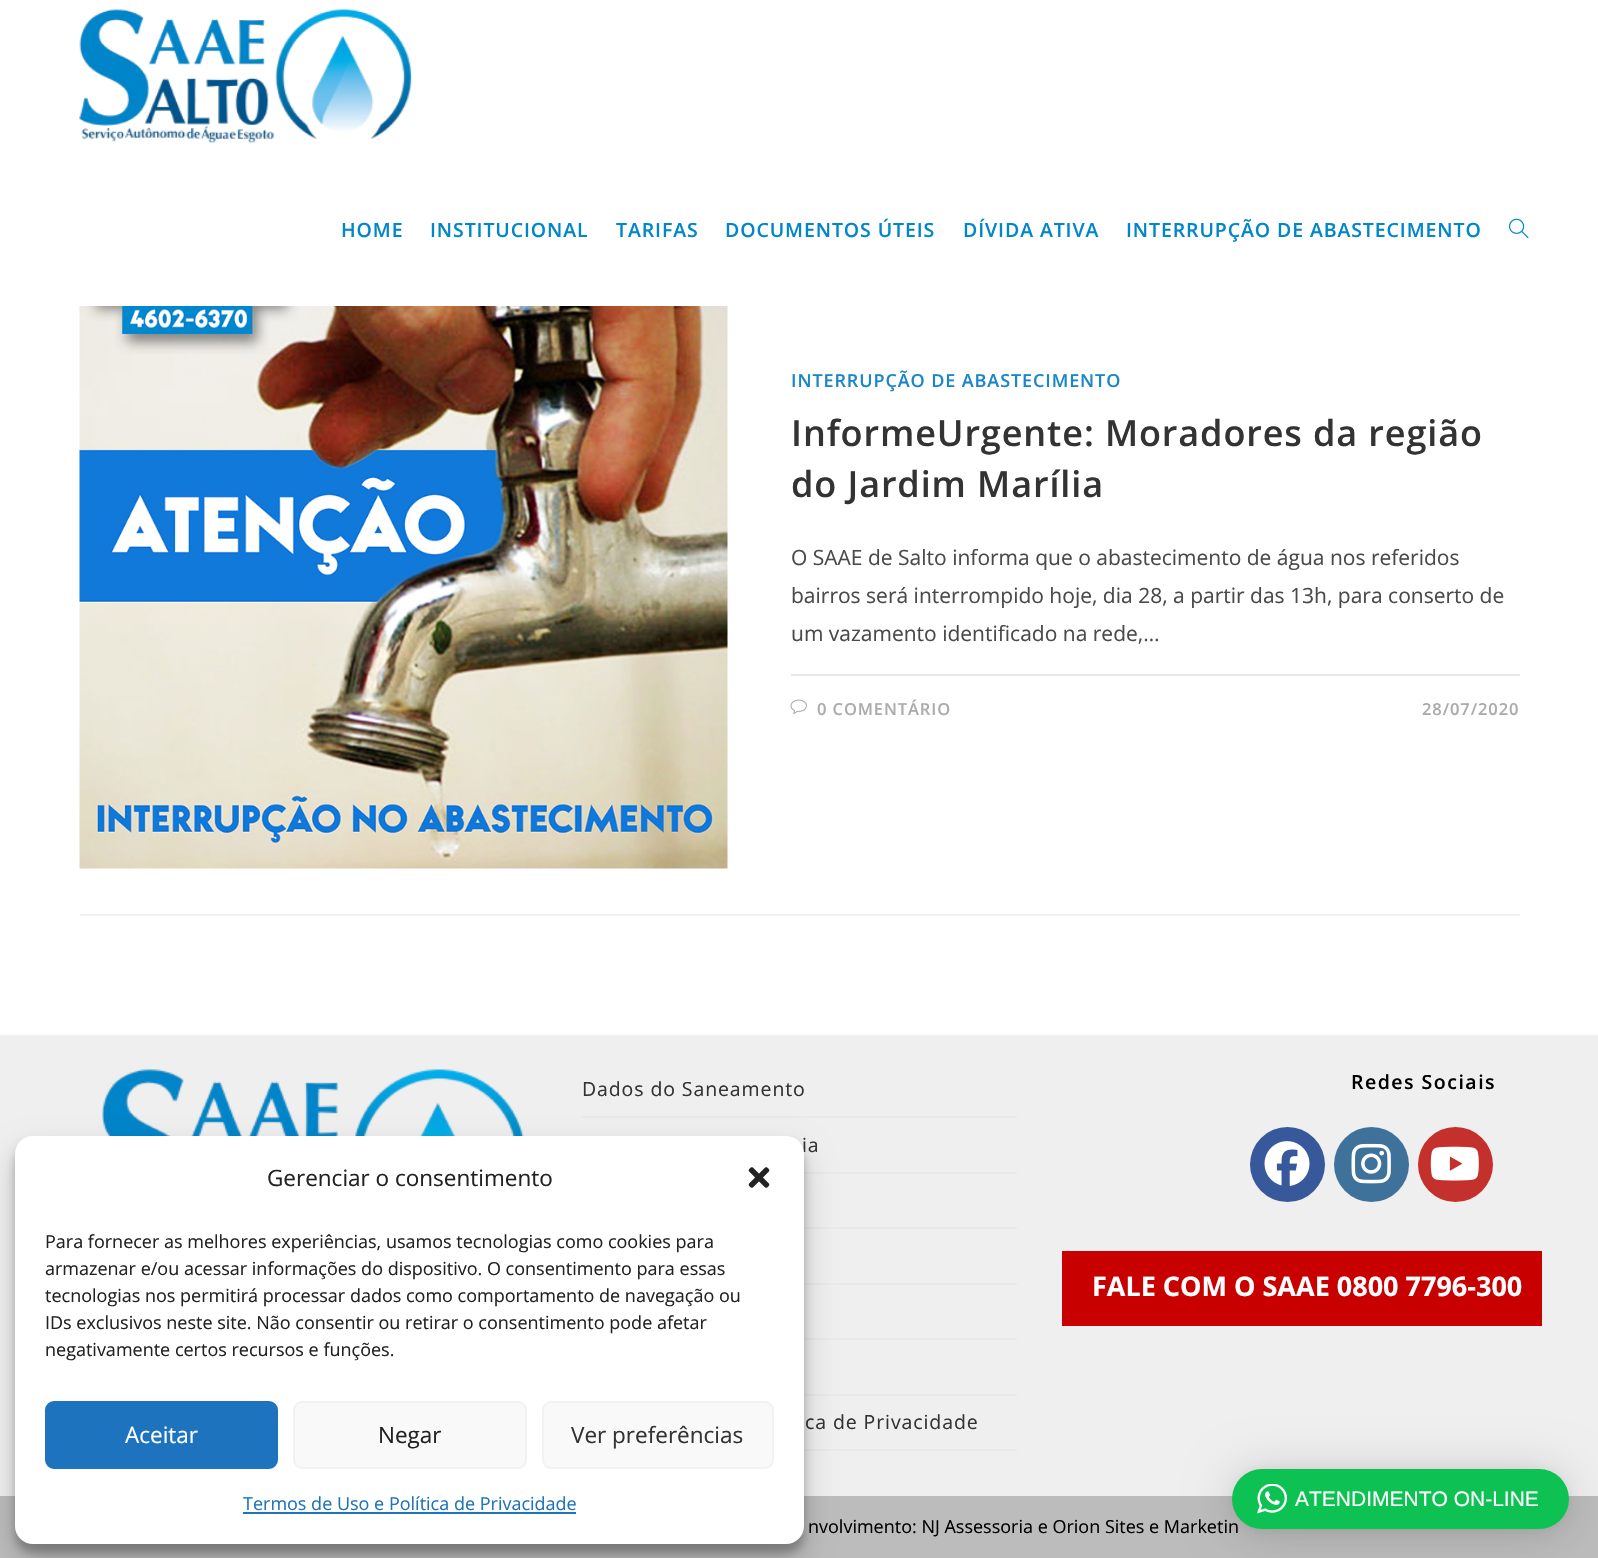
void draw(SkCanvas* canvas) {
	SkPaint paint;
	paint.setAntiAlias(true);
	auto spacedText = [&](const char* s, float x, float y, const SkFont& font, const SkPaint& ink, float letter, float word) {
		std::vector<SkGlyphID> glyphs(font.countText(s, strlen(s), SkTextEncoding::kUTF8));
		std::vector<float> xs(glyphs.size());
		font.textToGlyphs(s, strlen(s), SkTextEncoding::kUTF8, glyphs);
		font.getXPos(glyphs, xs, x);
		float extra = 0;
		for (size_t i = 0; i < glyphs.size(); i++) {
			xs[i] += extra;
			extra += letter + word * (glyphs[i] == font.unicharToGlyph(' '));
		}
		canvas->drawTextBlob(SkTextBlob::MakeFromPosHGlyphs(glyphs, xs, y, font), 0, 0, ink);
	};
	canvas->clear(0xffffffff);
	canvas->drawImageRect(SkImages::DeferredFromEncodedData(SkData::MakeFromFileName("img1.png")), SkRect::MakeXYWH(79, 9, 333, 134), SkSamplingOptions());
	SkFont f1(fontMgr->matchFamilyStyle("Open Sans", SkFontStyle(600, SkFontStyle::kNormal_Width, SkFontStyle::kUpright_Slant)), 19.5);
	f1.setSubpixel(true);
	paint.setColor(0xff0087ca);
	spacedText("HOME", 341, 237, f1, paint, 0.9, 0);
	spacedText("INSTITUCIONAL", 430, 237, f1, paint, 0.9, 0);
	spacedText("TARIFAS", 616, 237, f1, paint, 0.9, 0);
	spacedText("DOCUMENTOS ÚTEIS", 725, 237, f1, paint, 0.9, 0);
	spacedText("DÍVIDA ATIVA", 963, 237, f1, paint, 0.9, 0);
	spacedText("INTERRUPÇÃO DE ABASTECIMENTO", 1126, 237, f1, paint, 0.9, 0);
	canvas->drawImageRect(SkImages::DeferredFromEncodedData(SkData::MakeFromFileName("img2.png")), SkRect::MakeXYWH(1508, 218, 21, 21), SkSamplingOptions());
	paint.setColor(0xfff1f1f1);
	canvas->drawRect(SkRect::MakeXYWH(80, 914, 1440, 2), paint);
	canvas->drawImageRect(SkImages::DeferredFromEncodedData(SkData::MakeFromFileName("img3.png")), SkRect::MakeXYWH(79, 306, 649, 563), SkSamplingOptions());
	SkFont f2(fontMgr->matchFamilyStyle("Open Sans", SkFontStyle(600, SkFontStyle::kNormal_Width, SkFontStyle::kUpright_Slant)), 18);
	f2.setSubpixel(true);
	paint.setColor(0xff1986c7);
	spacedText("INTERRUPÇÃO DE ABASTECIMENTO", 791, 387, f2, paint, 0.9, 0);
	SkFont f3(fontMgr->matchFamilyStyle("Open Sans", SkFontStyle(600, SkFontStyle::kNormal_Width, SkFontStyle::kUpright_Slant)), 36);
	f3.setSubpixel(true);
	paint.setColor(0xff333333);
	spacedText("InformeUrgente: Moradores da região", 791, 446, f3, paint, 0.9, 0);
	spacedText("do Jardim Marília", 791, 497, f3, paint, 0.9, 0);
	SkFont f4(fontMgr->matchFamilyStyle("Open Sans", SkFontStyle::Normal()), 21);
	f4.setSubpixel(true);
	paint.setColor(0xff4a4a4a);
	canvas->drawString("O SAAE de Salto informa que o abastecimento de água nos referidos", 791, 565, f4, paint);
	canvas->drawString("bairros será interrompido hoje, dia 28, a partir das 13h, para conserto de", 791, 603, f4, paint);
	canvas->drawString("um vazamento identificado na rede,…", 791, 641, f4, paint);
	paint.setColor(0xffe9e9e9);
	canvas->drawRect(SkRect::MakeXYWH(791, 674, 729, 2), paint);
	canvas->drawImageRect(SkImages::DeferredFromEncodedData(SkData::MakeFromFileName("img4.png")), SkRect::MakeXYWH(790, 699, 17, 15), SkSamplingOptions());
	SkFont f5(fontMgr->matchFamilyStyle("Open Sans", SkFontStyle(600, SkFontStyle::kNormal_Width, SkFontStyle::kUpright_Slant)), 16.5);
	f5.setSubpixel(true);
	paint.setColor(0xffababab);
	spacedText("0 COMENTÁRIO", 817, 715, f5, paint, 0.9, 0);
	spacedText("28/07/2020", 1422, 715, f5, paint, 0.9, 0);
	paint.setColor(0xffefefef);
	canvas->drawRect(SkRect::MakeXYWH(0, 1035, 1598, 461), paint);
	canvas->drawImageRect(SkImages::DeferredFromEncodedData(SkData::MakeFromFileName("img5.png")), SkRect::MakeXYWH(102, 1069, 422, 67), SkSamplingOptions());
	paint.setColor(0xffe9e9e9);
	canvas->drawRect(SkRect::MakeXYWH(582, 1116, 435, 2), paint);
	SkFont f6(fontMgr->matchFamilyStyle("Open Sans", SkFontStyle::Normal()), 19.5);
	f6.setSubpixel(true);
	paint.setColor(0xff333333);
	spacedText("Dados do Saneamento", 582, 1096, f6, paint, 0.9, 0);
	paint.setColor(0xffe9e9e9);
	canvas->drawRect(SkRect::MakeXYWH(804, 1172, 213, 2), paint);
	paint.setColor(0xff333333);
	spacedText("ia", 802, 1152, f6, paint, 0.9, 0);
	paint.setColor(0xffe9e9e9);
	canvas->drawRect(SkRect::MakeXYWH(804, 1227, 213, 2), paint);
	canvas->drawRect(SkRect::MakeXYWH(804, 1283, 213, 2), paint);
	canvas->drawRect(SkRect::MakeXYWH(804, 1338, 213, 2), paint);
	canvas->drawRect(SkRect::MakeXYWH(804, 1394, 213, 2), paint);
	canvas->drawRect(SkRect::MakeXYWH(804, 1449, 213, 2), paint);
	paint.setColor(0xff333333);
	spacedText("ca de Privacidade", 805, 1429, f6, paint, 0.9, 0);
	paint.setColor(0xff000000);
	spacedText("Redes Sociais", 1351, 1089, f1, paint, 1.5, 0);
	paint.setColor(0xff37589b);
	canvas->drawCircle(1287.5, 1164.5, 37.5, paint);
	canvas->drawImageRect(SkImages::DeferredFromEncodedData(SkData::MakeFromFileName("img6.png")), SkRect::MakeXYWH(1264, 1141, 46, 45), SkSamplingOptions());
	paint.setColor(0xff3f729b);
	canvas->drawCircle(1371.5, 1164.5, 37.5, paint);
	canvas->drawImageRect(SkImages::DeferredFromEncodedData(SkData::MakeFromFileName("img7.png")), SkRect::MakeXYWH(1351, 1143, 40, 41), SkSamplingOptions());
	paint.setColor(0xffc4302b);
	canvas->drawCircle(1455.5, 1164.5, 37.5, paint);
	canvas->drawImageRect(SkImages::DeferredFromEncodedData(SkData::MakeFromFileName("img8.png")), SkRect::MakeXYWH(1430, 1146, 49, 35), SkSamplingOptions());
	paint.setColor(0xffc90000);
	canvas->drawRect(SkRect::MakeXYWH(1062, 1251, 480, 75), paint);
	SkFont f7(fontMgr->matchFamilyStyle("Open Sans", SkFontStyle::Bold()), 27);
	f7.setSubpixel(true);
	paint.setColor(0xffffffff);
	canvas->drawString("FALE COM O SAAE 0800 7796-300", 1092, 1296, f7, paint);
	paint.setColor(0xffbcbcbc);
	canvas->drawRect(SkRect::MakeXYWH(0, 1496, 1598, 62), paint);
	SkFont f8(fontMgr->matchFamilyStyle("Open Sans", SkFontStyle::Normal()), 18);
	f8.setSubpixel(true);
	paint.setColor(0xff000000);
	canvas->drawString("nvolvimento: NJ Assessoria e Orion Sites e Marketin", 808, 1533, f8, paint);
	paint.setColor(0x3b000000);
	paint.setMaskFilter(SkMaskFilter::MakeBlur(kNormal_SkBlurStyle, 4.5));
	canvas->drawRoundRect(SkRect::MakeXYWH(15, 1145, 789, 408), 18, 18, paint);
	paint.setMaskFilter(nullptr);
	paint.setColor(0x30000000);
	paint.setMaskFilter(SkMaskFilter::MakeBlur(kNormal_SkBlurStyle, 15));
	canvas->drawRoundRect(SkRect::MakeXYWH(15, 1151, 789, 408), 18, 18, paint);
	paint.setMaskFilter(nullptr);
	paint.setColor(0xffffffff);
	canvas->drawRoundRect(SkRect::MakeXYWH(15, 1136, 789, 408), 18, 18, paint);
	SkFont f9(fontMgr->matchFamilyStyle("Open Sans", SkFontStyle::Normal()), 22.5);
	f9.setSubpixel(true);
	paint.setColor(0xff222222);
	canvas->drawString("Gerenciar o consentimento", 267, 1186, f9, paint);
	canvas->drawImageRect(SkImages::DeferredFromEncodedData(SkData::MakeFromFileName("img9.png")), SkRect::MakeXYWH(748, 1167, 22, 21), SkSamplingOptions());
	canvas->drawString("Para fornecer as melhores experiências, usamos tecnologias como cookies para", 45, 1248, f8, paint);
	canvas->drawString("armazenar e/ou acessar informações do dispositivo. O consentimento para essas", 45, 1275, f8, paint);
	canvas->drawString("tecnologias nos permitirá processar dados como comportamento de navegação ou", 45, 1302, f8, paint);
	canvas->drawString("IDs exclusivos neste site. Não consentir ou retirar o consentimento pode afetar", 45, 1329, f8, paint);
	canvas->drawString("negativamente certos recursos e funções.", 45, 1356, f8, paint);
	paint.setColor(0xff1e73be);
	canvas->drawRoundRect(SkRect::MakeXYWH(46, 1402, 231, 66), 8, 8, paint);
	paint.setStroke(true);
	paint.setStrokeWidth(2);
	canvas->drawRoundRect(SkRect::MakeXYWH(46, 1402, 231, 66), 8, 8, paint);
	paint.setStroke(false);
	paint.setColor(0xffffffff);
	canvas->drawString("Aceitar", 125, 1443, f9, paint);
	paint.setColor(0xfff9f9f9);
	canvas->drawRoundRect(SkRect::MakeXYWH(294, 1402, 232, 66), 8, 8, paint);
	paint.setStroke(true);
	paint.setColor(0xfff2f2f2);
	canvas->drawRoundRect(SkRect::MakeXYWH(294, 1402, 232, 66), 8, 8, paint);
	paint.setStroke(false);
	paint.setColor(0xff222222);
	canvas->drawString("Negar", 378, 1443, f9, paint);
	paint.setColor(0xfff9f9f9);
	canvas->drawRoundRect(SkRect::MakeXYWH(543, 1402, 230, 66), 8, 8, paint);
	paint.setStroke(true);
	paint.setColor(0xfff2f2f2);
	canvas->drawRoundRect(SkRect::MakeXYWH(543, 1402, 230, 66), 8, 8, paint);
	paint.setStroke(false);
	paint.setColor(0xff333333);
	canvas->drawString("Ver preferências", 571, 1443, f9, paint);
	paint.setColor(0xff1e73be);
	canvas->drawString("Termos de Uso e Política de Privacidade", 243, 1510, f8, paint);
	canvas->drawRect(SkRect::MakeXYWH(243, 1512, 333, 2), paint);
	paint.setColor(0x29000000);
	paint.setMaskFilter(SkMaskFilter::MakeBlur(kNormal_SkBlurStyle, 24));
	canvas->drawRoundRect(SkRect::MakeXYWH(1232, 1472, 337, 60), 30, 30, paint);
	paint.setMaskFilter(nullptr);
	paint.setColor(0x0f000000);
	paint.setMaskFilter(SkMaskFilter::MakeBlur(kNormal_SkBlurStyle, 4.5));
	canvas->drawRoundRect(SkRect::MakeXYWH(1232, 1470, 337, 60), 30, 30, paint);
	paint.setMaskFilter(nullptr);
	paint.setColor(0xff0dc152);
	canvas->drawRoundRect(SkRect::MakeXYWH(1232, 1469, 337, 60), 30, 30, paint);
	canvas->drawImageRect(SkImages::DeferredFromEncodedData(SkData::MakeFromFileName("img10.png")), SkRect::MakeXYWH(1257, 1484, 30, 30), SkSamplingOptions());
	SkFont f10(fontMgr->matchFamilyStyle("Liberation Sans", SkFontStyle::Normal()), 21);
	f10.setSubpixel(true);
	paint.setColor(0xffffffff);
	canvas->drawString("ATENDIMENTO ON-LINE", 1295, 1506, f10, paint);
}
